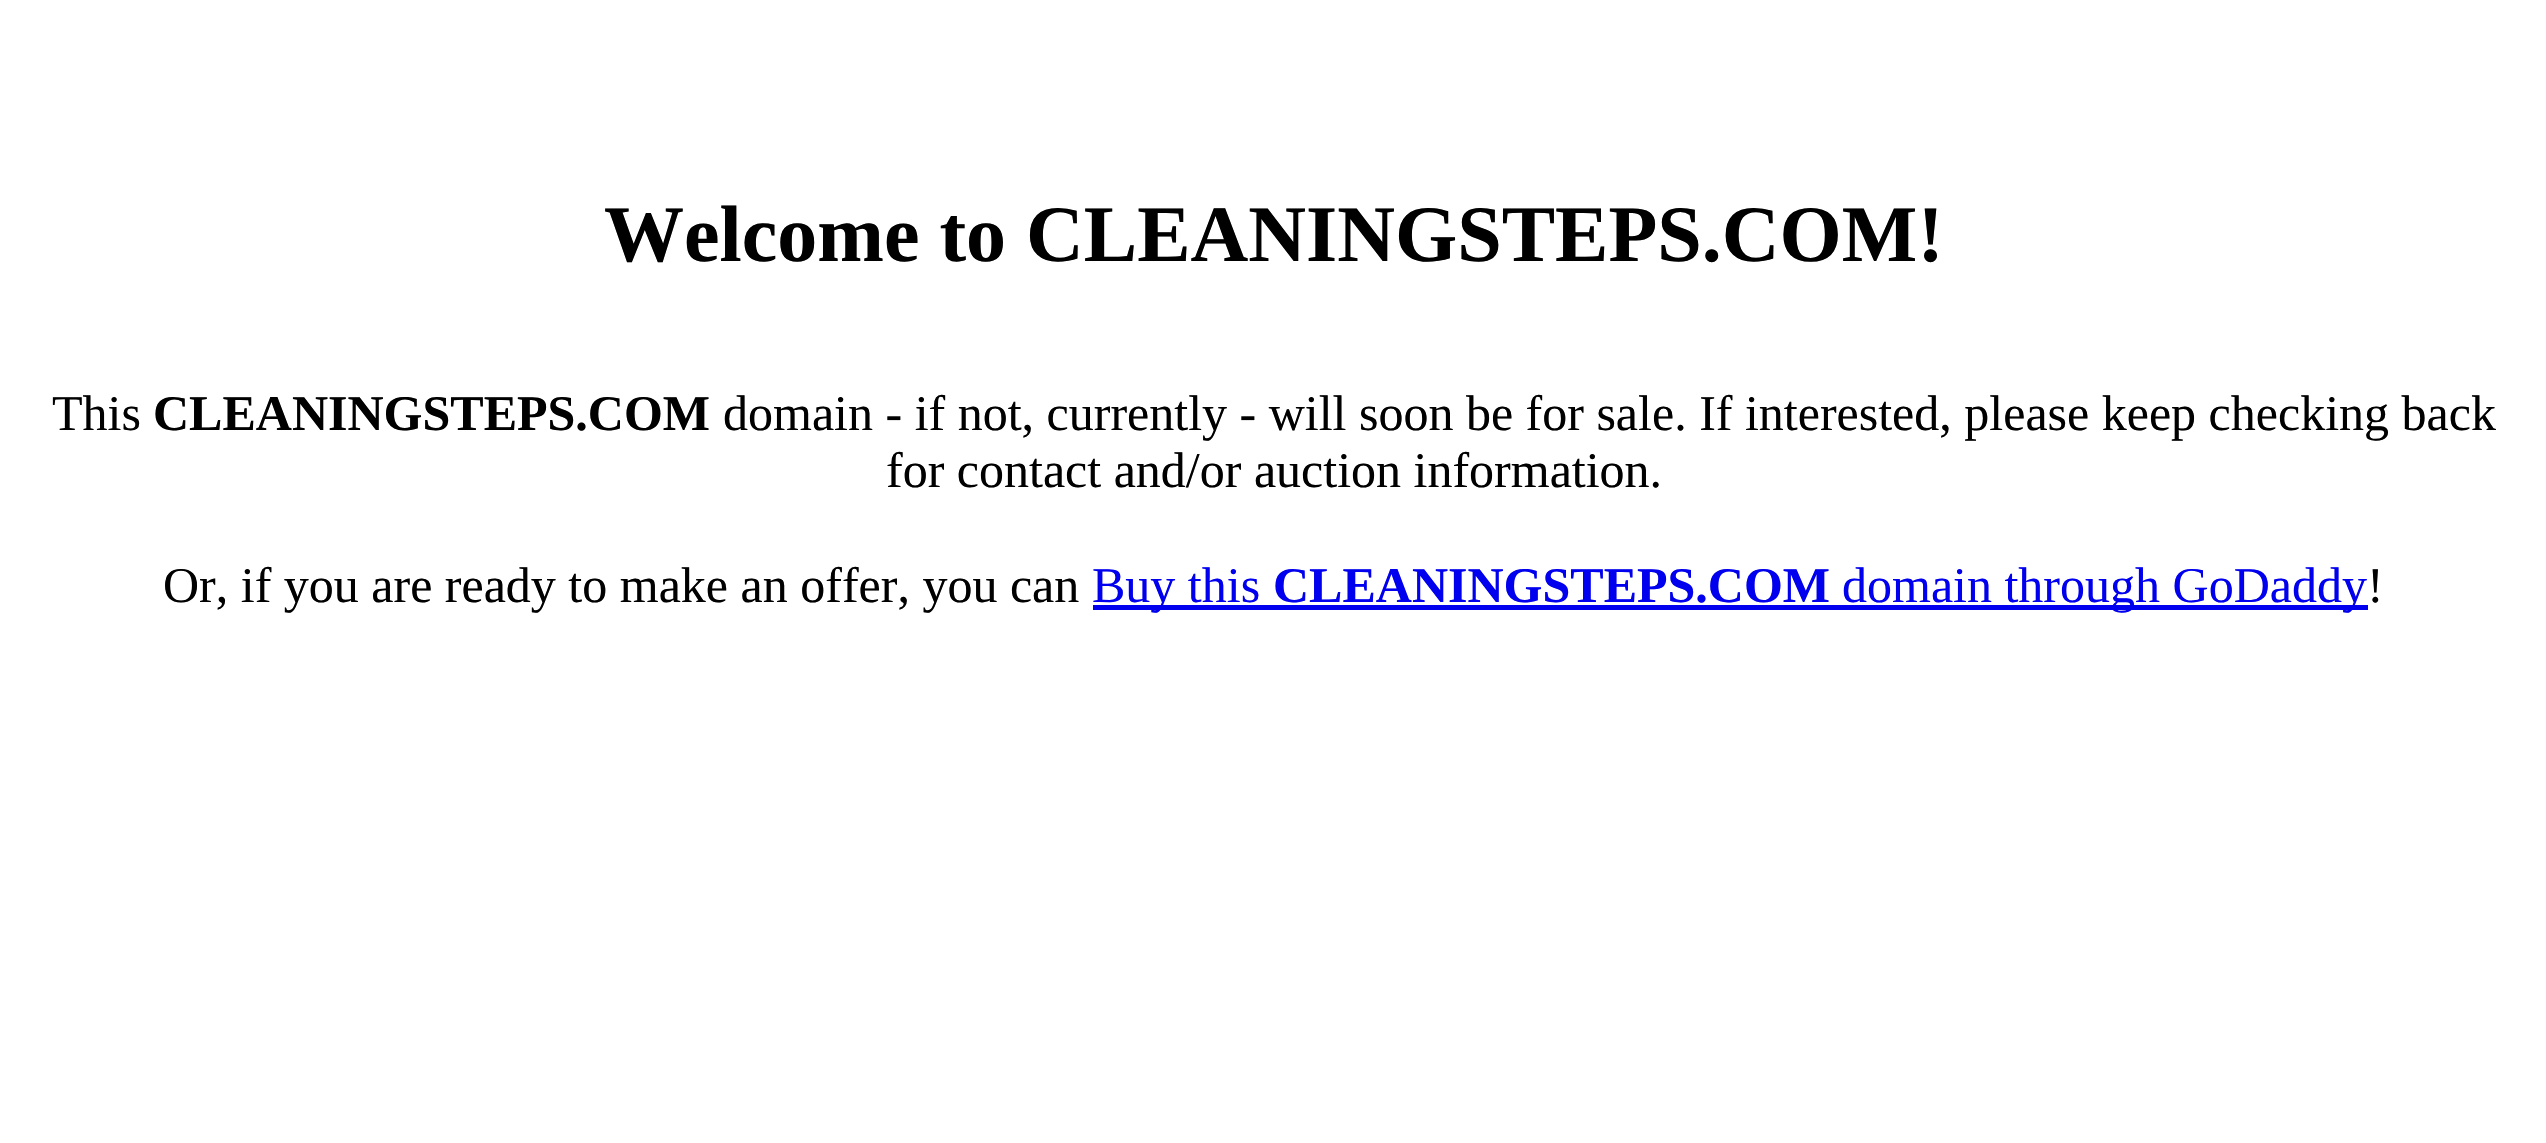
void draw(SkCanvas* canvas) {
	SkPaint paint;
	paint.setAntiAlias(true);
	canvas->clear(0xffffffff);
	SkFont f1(fontMgr->matchFamilyStyle("Liberation Serif", SkFontStyle::Bold()), 80);
	f1.setSubpixel(true);
	paint.setColor(0xff000000);
	canvas->drawString("Welcome to CLEANINGSTEPS.COM!", 604, 261, f1, paint);
	SkFont f2(fontMgr->matchFamilyStyle("Liberation Serif", SkFontStyle::Normal()), 50);
	f2.setSubpixel(true);
	canvas->drawString("This", 52, 430, f2, paint);
	SkFont f3(fontMgr->matchFamilyStyle("Liberation Serif", SkFontStyle::Bold()), 50);
	f3.setSubpixel(true);
	canvas->drawString("CLEANINGSTEPS.COM", 153, 430, f3, paint);
	canvas->drawString("domain - if not, currently - will soon be for sale. If interested, please keep checking back", 723, 430, f2, paint);
	canvas->drawString("for contact and/or auction information.", 886, 487, f2, paint);
	canvas->drawString("Or, if you are ready to make an offer, you can", 163, 602, f2, paint);
	paint.setColor(0xff0000ee);
	canvas->drawRect(SkRect::MakeXYWH(1093, 605, 1275, 5), paint);
	canvas->drawString("Buy this", 1092, 602, f2, paint);
	canvas->drawString("CLEANINGSTEPS.COM", 1273, 602, f3, paint);
	canvas->drawString("domain through GoDaddy", 1842, 602, f2, paint);
	paint.setColor(0xff000000);
	canvas->drawString("!", 2367, 602, f2, paint);
}
